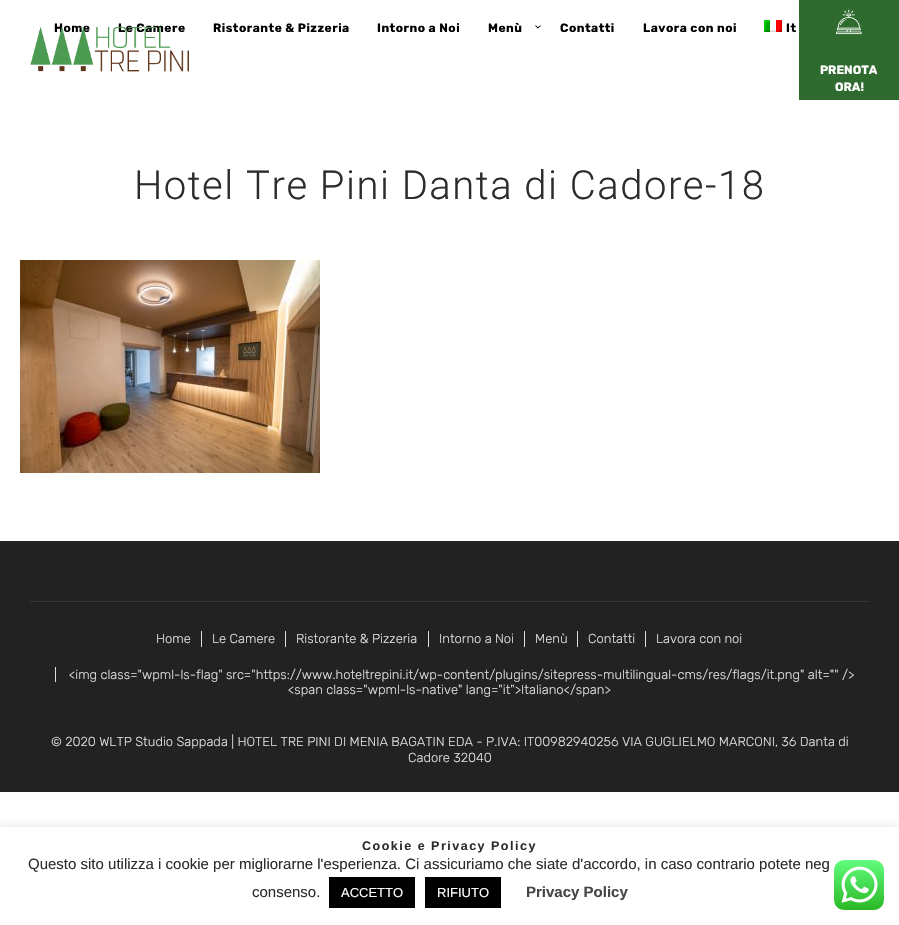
void draw(SkCanvas* canvas) {
	SkPaint paint;
	paint.setAntiAlias(true);
	auto spacedText = [&](const char* s, float x, float y, const SkFont& font, const SkPaint& ink, float letter, float word) {
		std::vector<SkGlyphID> glyphs(font.countText(s, strlen(s), SkTextEncoding::kUTF8));
		std::vector<float> xs(glyphs.size());
		font.textToGlyphs(s, strlen(s), SkTextEncoding::kUTF8, glyphs);
		font.getXPos(glyphs, xs, x);
		float extra = 0;
		for (size_t i = 0; i < glyphs.size(); i++) {
			xs[i] += extra;
			extra += letter + word * (glyphs[i] == font.unicharToGlyph(' '));
		}
		canvas->drawTextBlob(SkTextBlob::MakeFromPosHGlyphs(glyphs, xs, y, font), 0, 0, ink);
	};
	canvas->clear(0xffffffff);
	SkFont f1(fontMgr->matchFamilyStyle("Rubik", SkFontStyle::Bold()), 12);
	f1.setSubpixel(true);
	paint.setColor(0xff000000);
	spacedText("Home", 54, 32, f1, paint, 0.5, 0);
	spacedText("Le Camere", 118, 32, f1, paint, 0.5, 0);
	spacedText("Ristorante & Pizzeria", 213, 32, f1, paint, 0.5, 0);
	spacedText("Intorno a Noi", 377, 32, f1, paint, 0.5, 0);
	spacedText("Menù", 488, 32, f1, paint, 0.5, 0);
	canvas->drawImageRect(SkImages::DeferredFromEncodedData(SkData::MakeFromFileName("img1.png")), SkRect::MakeXYWH(535, 25, 6, 4), SkSamplingOptions());
	spacedText("Contatti", 560, 32, f1, paint, 0.5, 0);
	spacedText("Lavora con noi", 643, 32, f1, paint, 0.5, 0);
	canvas->drawImageRect(SkImages::DeferredFromEncodedData(SkData::MakeFromFileName("img2.png")), SkRect::MakeXYWH(764, 20, 18, 12), SkSamplingOptions());
	spacedText("It", 786, 32, f1, paint, 0.5, 0);
	paint.setColor(0xff2f6a2e);
	canvas->drawRect(SkRect::MakeXYWH(799, 0, 100, 100), paint);
	canvas->drawImageRect(SkImages::DeferredFromEncodedData(SkData::MakeFromFileName("img3.png")), SkRect::MakeXYWH(836, 9, 26, 26), SkSamplingOptions());
	paint.setColor(0xffffffff);
	canvas->drawString("PRENOTA", 820, 74, f1, paint);
	canvas->drawString("ORA!", 835, 91, f1, paint);
	canvas->drawImageRect(SkImages::DeferredFromEncodedData(SkData::MakeFromFileName("img4.png")), SkRect::MakeXYWH(30, 26, 159, 46), SkSamplingOptions());
	SkFont f2(fontMgr->matchFamilyStyle("Roboto", SkFontStyle(300, SkFontStyle::kNormal_Width, SkFontStyle::kUpright_Slant)), 40);
	f2.setSubpixel(true);
	paint.setColor(0xff2f2b2c);
	spacedText("Hotel Tre Pini Danta di Cadore-18", 134, 199, f2, paint, 1.5, 0);
	canvas->drawImageRect(SkImages::DeferredFromEncodedData(SkData::MakeFromFileName("img5.png")), SkRect::MakeXYWH(20, 260, 300, 213), SkSamplingOptions());
	paint.setColor(0xff222222);
	canvas->drawRect(SkRect::MakeXYWH(0, 541, 899, 251), paint);
	paint.setColor(0xff363636);
	canvas->drawRect(SkRect::MakeXYWH(30, 601, 839, 1), paint);
	SkFont f3(fontMgr->matchFamilyStyle("Rubik", SkFontStyle(300, SkFontStyle::kNormal_Width, SkFontStyle::kUpright_Slant)), 13);
	f3.setSubpixel(true);
	paint.setColor(0xffdfdfdf);
	canvas->drawString("Home", 156, 643, f3, paint);
	canvas->drawRect(SkRect::MakeXYWH(201, 631, 1, 16), paint);
	canvas->drawString("Le Camere", 212, 643, f3, paint);
	canvas->drawRect(SkRect::MakeXYWH(285, 631, 1, 16), paint);
	canvas->drawString("Ristorante & Pizzeria", 296, 643, f3, paint);
	canvas->drawRect(SkRect::MakeXYWH(428, 631, 1, 16), paint);
	canvas->drawString("Intorno a Noi", 439, 643, f3, paint);
	canvas->drawRect(SkRect::MakeXYWH(524, 631, 1, 16), paint);
	canvas->drawString("Menù", 535, 643, f3, paint);
	canvas->drawRect(SkRect::MakeXYWH(577, 631, 1, 16), paint);
	canvas->drawString("Contatti", 588, 643, f3, paint);
	canvas->drawRect(SkRect::MakeXYWH(645, 631, 1, 16), paint);
	canvas->drawString("Lavora con noi", 656, 643, f3, paint);
	canvas->drawRect(SkRect::MakeXYWH(55, 667, 1, 15), paint);
	canvas->drawString("<img class=\"wpml-ls-flag\" src=\"https://www.hoteltrepini.it/wp-content/plugins/sitepress-multilingual-cms/res/flags/it.png\" alt=\"\" />", 69, 679, f3, paint);
	canvas->drawString("<span class=\"wpml-ls-native\" lang=\"it\">Italiano</span>", 288, 694, f3, paint);
	canvas->drawString("© 2020 WLTP Studio Sappada | HOTEL TRE PINI DI MENIA BAGATIN EDA - P.IVA: IT00982940256 VIA GUGLIELMO MARCONI, 36 Danta di", 51, 746, f3, paint);
	canvas->drawString("Cadore 32040", 408, 762, f3, paint);
	canvas->save();
	canvas->clipRect(SkRect::MakeXYWH(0, 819, 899, 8));
	paint.setColor(0x4dacabab);
	paint.setMaskFilter(SkMaskFilter::MakeBlur(kNormal_SkBlurStyle, 5));
	canvas->drawRect(SkRect::MakeXYWH(0, 826, 899, 98), paint);
	paint.setMaskFilter(nullptr);
	canvas->restore();
	SkFont f4(fontMgr->matchFamilyStyle("Liberation Sans", SkFontStyle::Bold()), 12.5);
	f4.setSubpixel(true);
	paint.setColor(0xff2f2b2c);
	spacedText("Cookie e Privacy Policy", 362, 850, f4, paint, 1.5, 0);
	SkFont f5(fontMgr->matchFamilyStyle("Liberation Sans", SkFontStyle::Normal()), 15);
	f5.setSubpixel(true);
	canvas->drawString("Questo sito utilizza i cookie per migliorarne l'esperienza. Ci assicuriamo che siate d'accordo, in caso contrario potete neg", 28, 869, f5, paint);
	canvas->drawString("consenso.", 252, 897, f5, paint);
	paint.setColor(0xff000000);
	canvas->drawRect(SkRect::MakeXYWH(329, 877, 86, 31), paint);
	SkFont f6(fontMgr->matchFamilyStyle("Liberation Sans", SkFontStyle::Normal()), 13);
	f6.setSubpixel(true);
	paint.setColor(0xffffffff);
	canvas->drawString("ACCETTO", 341, 897, f6, paint);
	paint.setColor(0xff000000);
	canvas->drawRect(SkRect::MakeXYWH(425, 877, 76, 31), paint);
	paint.setColor(0xffffffff);
	canvas->drawString("RIFIUTO", 437, 897, f6, paint);
	SkFont f7(fontMgr->matchFamilyStyle("Liberation Sans", SkFontStyle::Bold()), 15);
	f7.setSubpixel(true);
	paint.setColor(0xff444444);
	canvas->drawString("Privacy Policy", 526, 897, f7, paint);
	canvas->drawImageRect(SkImages::DeferredFromEncodedData(SkData::MakeFromFileName("img6.png")), SkRect::MakeXYWH(834, 860, 50, 50), SkSamplingOptions());
}
